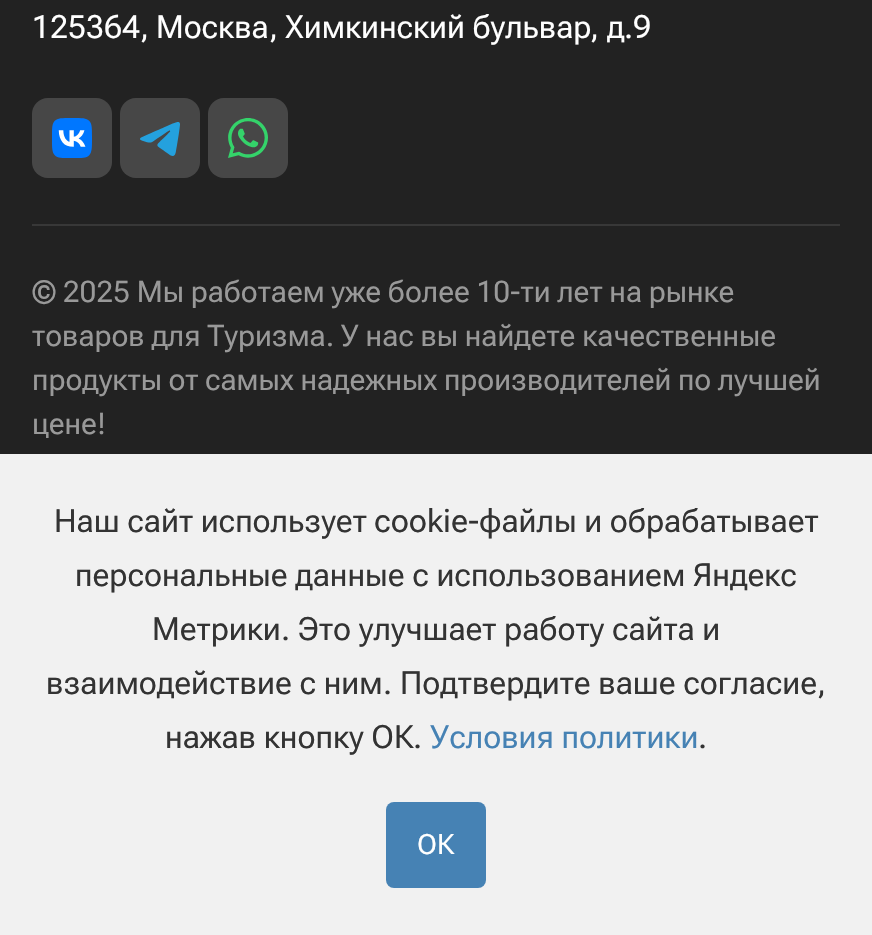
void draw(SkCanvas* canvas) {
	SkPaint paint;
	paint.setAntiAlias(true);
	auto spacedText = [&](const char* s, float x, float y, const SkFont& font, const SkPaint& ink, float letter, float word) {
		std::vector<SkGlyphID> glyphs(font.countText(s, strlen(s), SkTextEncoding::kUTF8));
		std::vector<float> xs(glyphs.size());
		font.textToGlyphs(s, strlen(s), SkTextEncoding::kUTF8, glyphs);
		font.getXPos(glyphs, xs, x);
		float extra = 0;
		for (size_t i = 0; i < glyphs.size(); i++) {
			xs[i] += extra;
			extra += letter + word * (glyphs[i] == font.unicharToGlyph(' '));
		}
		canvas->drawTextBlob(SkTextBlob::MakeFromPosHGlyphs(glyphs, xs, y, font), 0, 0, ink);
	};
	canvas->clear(0xff222222);
	SkFont f1(fontMgr->matchFamilyStyle("Roboto Flex", SkFontStyle::Normal()), 31.9);
	f1.setSubpixel(true);
	paint.setColor(0xffffffff);
	canvas->drawString("125364,", 32, 38, f1, paint);
	SkFont f2(fontMgr->matchFamilyStyle("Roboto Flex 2", SkFontStyle::Normal()), 31.9);
	f2.setSubpixel(true);
	canvas->drawString("Москва", 156, 38, f2, paint);
	canvas->drawString(",", 269, 38, f1, paint);
	canvas->drawString("Химкинский бульвар", 285, 38, f2, paint);
	canvas->drawString(",", 590, 38, f1, paint);
	canvas->drawString("д", 607, 38, f2, paint);
	canvas->drawString(".9", 624, 38, f1, paint);
	paint.setColor(0xff474747);
	canvas->drawRoundRect(SkRect::MakeXYWH(32, 98, 80, 80), 16, 16, paint);
	canvas->drawImageRect(SkImages::DeferredFromEncodedData(SkData::MakeFromFileName("img1.png")), SkRect::MakeXYWH(52, 118, 40, 40), SkSamplingOptions());
	canvas->drawRoundRect(SkRect::MakeXYWH(120, 98, 80, 80), 16, 16, paint);
	canvas->drawImageRect(SkImages::DeferredFromEncodedData(SkData::MakeFromFileName("img2.png")), SkRect::MakeXYWH(140, 122, 40, 34), SkSamplingOptions());
	canvas->drawRoundRect(SkRect::MakeXYWH(208, 98, 80, 80), 16, 16, paint);
	canvas->drawImageRect(SkImages::DeferredFromEncodedData(SkData::MakeFromFileName("img3.png")), SkRect::MakeXYWH(228, 118, 40, 40), SkSamplingOptions());
	paint.setColor(0xff383838);
	canvas->drawRect(SkRect::MakeXYWH(32, 224, 808, 2), paint);
	SkFont f3(fontMgr->matchFamilyStyle("Roboto Flex", SkFontStyle::Normal()), 29.75);
	f3.setSubpixel(true);
	paint.setColor(0xff999999);
	spacedText("© 2025 Мы работаем уже более 10-ти лет на рынке", 32, 302, f3, paint, 0, -0.5);
	spacedText("товаров для Туризма. У нас вы найдете качественные", 32, 346, f3, paint, 0, -0.5);
	spacedText("продукты от самых надежных производителей по лучшей", 32, 390, f3, paint, 0, -0.75);
	canvas->drawString("цене!", 32, 434, f3, paint);
	paint.setColor(0xfff1f1f1);
	canvas->drawRect(SkRect::MakeXYWH(0, 454, 872, 481), paint);
	SkFont f4(fontMgr->matchFamilyStyle("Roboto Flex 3", SkFontStyle::Normal()), 32);
	f4.setSubpixel(true);
	paint.setColor(0xff333333);
	canvas->drawString("Наш сайт использует", 54, 532, f4, paint);
	SkFont f5(fontMgr->matchFamilyStyle("Roboto Flex", SkFontStyle::Normal()), 32);
	f5.setSubpixel(true);
	canvas->drawString("cookie-", 374, 532, f5, paint);
	canvas->drawString("файлы и обрабатывает", 479, 532, f4, paint);
	canvas->drawString("персональные данные с использованием Яндекс", 75, 586, f4, paint);
	canvas->drawString("Метрики", 152, 640, f4, paint);
	canvas->drawString(".", 281, 640, f5, paint);
	canvas->drawString("Это улучшает работу сайта и", 298, 640, f4, paint);
	canvas->drawString("взаимодействие с ним", 46, 694, f4, paint);
	canvas->drawString(".", 383, 694, f5, paint);
	canvas->drawString("Подтвердите ваше согласие", 400, 694, f4, paint);
	canvas->drawString(",", 817, 694, f5, paint);
	canvas->drawString("нажав кнопку ОК", 165, 748, f4, paint);
	canvas->drawString(".", 413, 748, f5, paint);
	paint.setColor(0xff4682b4);
	canvas->drawString("Условия политики", 430, 748, f4, paint);
	paint.setColor(0xff333333);
	canvas->drawString(".", 698, 748, f5, paint);
	paint.setColor(0xff4682b4);
	canvas->drawRoundRect(SkRect::MakeXYWH(386, 802, 100, 86), 8, 8, paint);
	SkFont f6(fontMgr->matchFamilyStyle("Roboto Flex", SkFontStyle::Normal()), 28);
	f6.setSubpixel(true);
	paint.setColor(0xffffffff);
	canvas->drawString("ОК", 417, 854, f6, paint);
}
